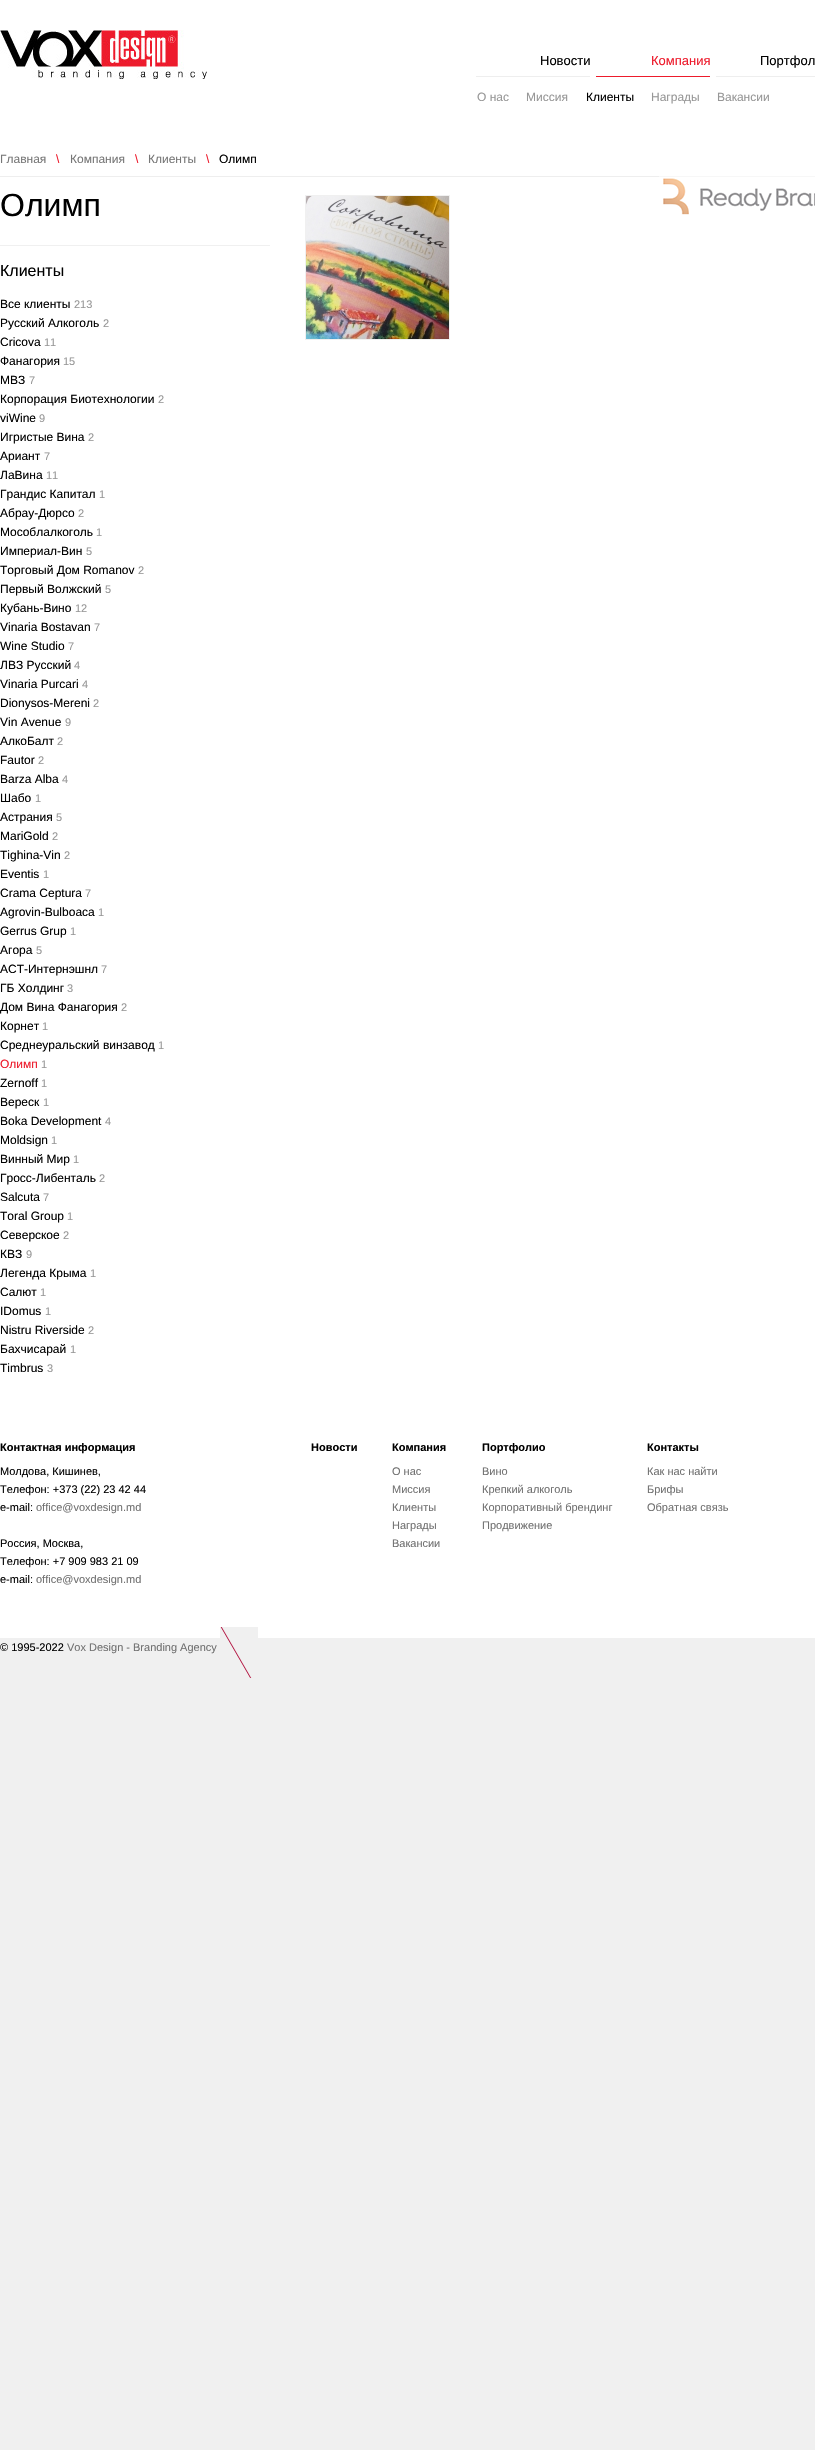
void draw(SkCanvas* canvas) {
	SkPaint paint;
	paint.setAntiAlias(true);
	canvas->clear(0xfff0f0f0);
	paint.setColor(0xffffffff);
	canvas->drawRect(SkRect::MakeXYWH(0, 0, 815, 1638), paint);
	canvas->drawImageRect(SkImages::DeferredFromEncodedData(SkData::MakeFromFileName("img1.png")), SkRect::MakeXYWH(0, 30, 207, 49), SkSamplingOptions());
	paint.setColor(0xffed1b2c);
	canvas->drawRect(SkRect::MakeXYWH(590, 76, 120, 1), paint);
	SkFont f1(fontMgr->matchFamilyStyle("Liberation Sans", SkFontStyle::Normal()), 13);
	f1.setSubpixel(true);
	canvas->drawString("Компания", 651, 65, f1, paint);
	paint.setColor(0xffffffff);
	canvas->drawRect(SkRect::MakeXYWH(590, 76, 6, 1), paint);
	SkFont f2(fontMgr->matchFamilyStyle("Liberation Sans", SkFontStyle::Normal()), 12);
	f2.setSubpixel(true);
	paint.setColor(0xff979797);
	canvas->drawString("О нас", 477, 101, f2, paint);
	canvas->drawString("Миссия", 526, 101, f2, paint);
	paint.setColor(0xff000000);
	canvas->drawString("Клиенты", 586, 101, f2, paint);
	paint.setColor(0xff979797);
	canvas->drawString("Награды", 651, 101, f2, paint);
	canvas->drawString("Вакансии", 717, 101, f2, paint);
	paint.setColor(0xffeeeeee);
	canvas->drawRect(SkRect::MakeXYWH(710, 76, 105, 1), paint);
	paint.setColor(0xff000000);
	canvas->drawString("Портфол", 760, 65, f1, paint);
	paint.setColor(0xffffffff);
	canvas->drawRect(SkRect::MakeXYWH(710, 76, 6, 1), paint);
	paint.setColor(0xffeeeeee);
	canvas->drawRect(SkRect::MakeXYWH(470, 76, 120, 1), paint);
	paint.setColor(0xff000000);
	canvas->drawString("Новости", 540, 65, f1, paint);
	paint.setColor(0xffffffff);
	canvas->drawRect(SkRect::MakeXYWH(470, 76, 6, 1), paint);
	paint.setColor(0xffeeeeee);
	canvas->drawRect(SkRect::MakeXYWH(0, 176, 815, 1), paint);
	paint.setColor(0xff777777);
	canvas->drawString("Главная", 0, 163, f2, paint);
	paint.setColor(0xffed1b2c);
	canvas->drawString("\\", 56, 163, f2, paint);
	paint.setColor(0xff777777);
	canvas->drawString("Компания", 70, 163, f2, paint);
	paint.setColor(0xffed1b2c);
	canvas->drawString("\\", 135, 163, f2, paint);
	paint.setColor(0xff777777);
	canvas->drawString("Клиенты", 148, 163, f2, paint);
	paint.setColor(0xffed1b2c);
	canvas->drawString("\\", 206, 163, f2, paint);
	paint.setColor(0xff000000);
	canvas->drawString("Олимп", 219, 163, f2, paint);
	SkFont f3(fontMgr->matchFamilyStyle("Liberation Sans", SkFontStyle::Normal()), 32);
	f3.setSubpixel(true);
	canvas->drawString("Олимп", 0, 216, f3, paint);
	paint.setColor(0xfff0f0f0);
	canvas->drawRect(SkRect::MakeXYWH(0, 245, 270, 1), paint);
	SkFont f4(fontMgr->matchFamilyStyle("Liberation Sans", SkFontStyle::Normal()), 16);
	f4.setSubpixel(true);
	paint.setColor(0xff000000);
	canvas->drawString("Клиенты", 0, 276, f4, paint);
	canvas->drawString("Все клиенты", 0, 308, f2, paint);
	SkFont f5(fontMgr->matchFamilyStyle("Liberation Sans", SkFontStyle::Normal()), 11);
	f5.setSubpixel(true);
	paint.setColor(0xff979797);
	canvas->drawString("213", 74, 308, f5, paint);
	paint.setColor(0xff000000);
	canvas->drawString("Русский Алкоголь", 0, 327, f2, paint);
	paint.setColor(0xff979797);
	canvas->drawString("2", 103, 327, f5, paint);
	paint.setColor(0xff000000);
	canvas->drawString("Cricova", 0, 346, f2, paint);
	paint.setColor(0xff979797);
	canvas->drawString("11", 44, 346, f5, paint);
	paint.setColor(0xff000000);
	canvas->drawString("Фанагория", 0, 365, f2, paint);
	paint.setColor(0xff979797);
	canvas->drawString("15", 63, 365, f5, paint);
	paint.setColor(0xff000000);
	canvas->drawString("МВЗ", 0, 384, f2, paint);
	paint.setColor(0xff979797);
	canvas->drawString("7", 29, 384, f5, paint);
	paint.setColor(0xff000000);
	canvas->drawString("Корпорация Биотехнологии", 0, 403, f2, paint);
	paint.setColor(0xff979797);
	canvas->drawString("2", 158, 403, f5, paint);
	paint.setColor(0xff000000);
	canvas->drawString("viWine", 0, 422, f2, paint);
	paint.setColor(0xff979797);
	canvas->drawString("9", 39, 422, f5, paint);
	paint.setColor(0xff000000);
	canvas->drawString("Игристые Вина", 0, 441, f2, paint);
	paint.setColor(0xff979797);
	canvas->drawString("2", 88, 441, f5, paint);
	paint.setColor(0xff000000);
	canvas->drawString("Ариант", 0, 460, f2, paint);
	paint.setColor(0xff979797);
	canvas->drawString("7", 44, 460, f5, paint);
	paint.setColor(0xff000000);
	canvas->drawString("ЛаВина", 0, 479, f2, paint);
	paint.setColor(0xff979797);
	canvas->drawString("11", 46, 479, f5, paint);
	paint.setColor(0xff000000);
	canvas->drawString("Грандис Капитал", 0, 498, f2, paint);
	paint.setColor(0xff979797);
	canvas->drawString("1", 99, 498, f5, paint);
	paint.setColor(0xff000000);
	canvas->drawString("Абрау-Дюрсо", 0, 517, f2, paint);
	paint.setColor(0xff979797);
	canvas->drawString("2", 78, 517, f5, paint);
	paint.setColor(0xff000000);
	canvas->drawString("Мособлалкоголь", 0, 536, f2, paint);
	paint.setColor(0xff979797);
	canvas->drawString("1", 96, 536, f5, paint);
	paint.setColor(0xff000000);
	canvas->drawString("Империал-Вин", 0, 555, f2, paint);
	paint.setColor(0xff979797);
	canvas->drawString("5", 86, 555, f5, paint);
	paint.setColor(0xff000000);
	canvas->drawString("Торговый Дом Romanov", 0, 574, f2, paint);
	paint.setColor(0xff979797);
	canvas->drawString("2", 138, 574, f5, paint);
	paint.setColor(0xff000000);
	canvas->drawString("Первый Волжский", 0, 593, f2, paint);
	paint.setColor(0xff979797);
	canvas->drawString("5", 105, 593, f5, paint);
	paint.setColor(0xff000000);
	canvas->drawString("Кубань-Вино", 0, 612, f2, paint);
	paint.setColor(0xff979797);
	canvas->drawString("12", 75, 612, f5, paint);
	paint.setColor(0xff000000);
	canvas->drawString("Vinaria Bostavan", 0, 631, f2, paint);
	paint.setColor(0xff979797);
	canvas->drawString("7", 94, 631, f5, paint);
	paint.setColor(0xff000000);
	canvas->drawString("Wine Studio", 0, 650, f2, paint);
	paint.setColor(0xff979797);
	canvas->drawString("7", 68, 650, f5, paint);
	paint.setColor(0xff000000);
	canvas->drawString("ЛВЗ Русский", 0, 669, f2, paint);
	paint.setColor(0xff979797);
	canvas->drawString("4", 74, 669, f5, paint);
	paint.setColor(0xff000000);
	canvas->drawString("Vinaria Purcari", 0, 688, f2, paint);
	paint.setColor(0xff979797);
	canvas->drawString("4", 82, 688, f5, paint);
	paint.setColor(0xff000000);
	canvas->drawString("Dionysos-Mereni", 0, 707, f2, paint);
	paint.setColor(0xff979797);
	canvas->drawString("2", 93, 707, f5, paint);
	paint.setColor(0xff000000);
	canvas->drawString("Vin Avenue", 0, 726, f2, paint);
	paint.setColor(0xff979797);
	canvas->drawString("9", 65, 726, f5, paint);
	paint.setColor(0xff000000);
	canvas->drawString("АлкоБалт", 0, 745, f2, paint);
	paint.setColor(0xff979797);
	canvas->drawString("2", 57, 745, f5, paint);
	paint.setColor(0xff000000);
	canvas->drawString("Fautor", 0, 764, f2, paint);
	paint.setColor(0xff979797);
	canvas->drawString("2", 38, 764, f5, paint);
	paint.setColor(0xff000000);
	canvas->drawString("Barza Alba", 0, 783, f2, paint);
	paint.setColor(0xff979797);
	canvas->drawString("4", 62, 783, f5, paint);
	paint.setColor(0xff000000);
	canvas->drawString("Шабо", 0, 802, f2, paint);
	paint.setColor(0xff979797);
	canvas->drawString("1", 35, 802, f5, paint);
	paint.setColor(0xff000000);
	canvas->drawString("Астрания", 0, 821, f2, paint);
	paint.setColor(0xff979797);
	canvas->drawString("5", 56, 821, f5, paint);
	paint.setColor(0xff000000);
	canvas->drawString("MariGold", 0, 840, f2, paint);
	paint.setColor(0xff979797);
	canvas->drawString("2", 52, 840, f5, paint);
	paint.setColor(0xff000000);
	canvas->drawString("Tighina-Vin", 0, 859, f2, paint);
	paint.setColor(0xff979797);
	canvas->drawString("2", 64, 859, f5, paint);
	paint.setColor(0xff000000);
	canvas->drawString("Eventis", 0, 878, f2, paint);
	paint.setColor(0xff979797);
	canvas->drawString("1", 43, 878, f5, paint);
	paint.setColor(0xff000000);
	canvas->drawString("Crama Ceptura", 0, 897, f2, paint);
	paint.setColor(0xff979797);
	canvas->drawString("7", 85, 897, f5, paint);
	paint.setColor(0xff000000);
	canvas->drawString("Agrovin-Bulboaca", 0, 916, f2, paint);
	paint.setColor(0xff979797);
	canvas->drawString("1", 98, 916, f5, paint);
	paint.setColor(0xff000000);
	canvas->drawString("Gerrus Grup", 0, 935, f2, paint);
	paint.setColor(0xff979797);
	canvas->drawString("1", 70, 935, f5, paint);
	paint.setColor(0xff000000);
	canvas->drawString("Агора", 0, 954, f2, paint);
	paint.setColor(0xff979797);
	canvas->drawString("5", 36, 954, f5, paint);
	paint.setColor(0xff000000);
	canvas->drawString("ACT-Интернэшнл", 0, 973, f2, paint);
	paint.setColor(0xff979797);
	canvas->drawString("7", 101, 973, f5, paint);
	paint.setColor(0xff000000);
	canvas->drawString("ГБ Холдинг", 0, 992, f2, paint);
	paint.setColor(0xff979797);
	canvas->drawString("3", 67, 992, f5, paint);
	paint.setColor(0xff000000);
	canvas->drawString("Дом Вина Фанагория", 0, 1011, f2, paint);
	paint.setColor(0xff979797);
	canvas->drawString("2", 121, 1011, f5, paint);
	paint.setColor(0xff000000);
	canvas->drawString("Корнет", 0, 1030, f2, paint);
	paint.setColor(0xff979797);
	canvas->drawString("1", 42, 1030, f5, paint);
	paint.setColor(0xff000000);
	canvas->drawString("Среднеуральский винзавод", 0, 1049, f2, paint);
	paint.setColor(0xff979797);
	canvas->drawString("1", 158, 1049, f5, paint);
	paint.setColor(0xffed1b2c);
	canvas->drawString("Олимп", 0, 1068, f2, paint);
	paint.setColor(0xff979797);
	canvas->drawString("1", 41, 1068, f5, paint);
	paint.setColor(0xff000000);
	canvas->drawString("Zernoff", 0, 1087, f2, paint);
	paint.setColor(0xff979797);
	canvas->drawString("1", 41, 1087, f5, paint);
	paint.setColor(0xff000000);
	canvas->drawString("Вереск", 0, 1106, f2, paint);
	paint.setColor(0xff979797);
	canvas->drawString("1", 43, 1106, f5, paint);
	paint.setColor(0xff000000);
	canvas->drawString("Boka Development", 0, 1125, f2, paint);
	paint.setColor(0xff979797);
	canvas->drawString("4", 105, 1125, f5, paint);
	paint.setColor(0xff000000);
	canvas->drawString("Moldsign", 0, 1144, f2, paint);
	paint.setColor(0xff979797);
	canvas->drawString("1", 51, 1144, f5, paint);
	paint.setColor(0xff000000);
	canvas->drawString("Винный Мир", 0, 1163, f2, paint);
	paint.setColor(0xff979797);
	canvas->drawString("1", 73, 1163, f5, paint);
	paint.setColor(0xff000000);
	canvas->drawString("Гросс-Либенталь", 0, 1182, f2, paint);
	paint.setColor(0xff979797);
	canvas->drawString("2", 99, 1182, f5, paint);
	paint.setColor(0xff000000);
	canvas->drawString("Salcuta", 0, 1201, f2, paint);
	paint.setColor(0xff979797);
	canvas->drawString("7", 43, 1201, f5, paint);
	paint.setColor(0xff000000);
	canvas->drawString("Toral Group", 0, 1220, f2, paint);
	paint.setColor(0xff979797);
	canvas->drawString("1", 67, 1220, f5, paint);
	paint.setColor(0xff000000);
	canvas->drawString("Северское", 0, 1239, f2, paint);
	paint.setColor(0xff979797);
	canvas->drawString("2", 63, 1239, f5, paint);
	paint.setColor(0xff000000);
	canvas->drawString("КВЗ", 0, 1258, f2, paint);
	paint.setColor(0xff979797);
	canvas->drawString("9", 26, 1258, f5, paint);
	paint.setColor(0xff000000);
	canvas->drawString("Легенда Крыма", 0, 1277, f2, paint);
	paint.setColor(0xff979797);
	canvas->drawString("1", 90, 1277, f5, paint);
	paint.setColor(0xff000000);
	canvas->drawString("Салют", 0, 1296, f2, paint);
	paint.setColor(0xff979797);
	canvas->drawString("1", 40, 1296, f5, paint);
	paint.setColor(0xff000000);
	canvas->drawString("IDomus", 0, 1315, f2, paint);
	paint.setColor(0xff979797);
	canvas->drawString("1", 45, 1315, f5, paint);
	paint.setColor(0xff000000);
	canvas->drawString("Nistru Riverside", 0, 1334, f2, paint);
	paint.setColor(0xff979797);
	canvas->drawString("2", 88, 1334, f5, paint);
	paint.setColor(0xff000000);
	canvas->drawString("Бахчисарай", 0, 1353, f2, paint);
	paint.setColor(0xff979797);
	canvas->drawString("1", 70, 1353, f5, paint);
	paint.setColor(0xff000000);
	canvas->drawString("Timbrus", 0, 1372, f2, paint);
	paint.setColor(0xff979797);
	canvas->drawString("3", 47, 1372, f5, paint);
	paint.setStroke(true);
	paint.setStrokeWidth(1);
	paint.setColor(0xfff0f0f0);
	canvas->drawRect(SkRect::MakeXYWH(305.5, 195.5, 144, 144), paint);
	canvas->drawImageRect(SkImages::DeferredFromEncodedData(SkData::MakeFromFileName("img2.png")), SkRect::MakeXYWH(306, 196, 143, 143), SkSamplingOptions());
	canvas->drawImageRect(SkImages::DeferredFromEncodedData(SkData::MakeFromFileName("img3.png")), SkRect::MakeXYWH(659, 176, 156, 39), SkSamplingOptions());
	canvas->drawImageRect(SkImages::DeferredFromEncodedData(SkData::MakeFromFileName("img4.png")), SkRect::MakeXYWH(220, 1627, 38, 51), SkSamplingOptions());
	SkFont f6(fontMgr->matchFamilyStyle("Liberation Sans", SkFontStyle::Bold()), 11);
	f6.setSubpixel(true);
	paint.setStroke(false);
	paint.setColor(0xff000000);
	canvas->drawString("Контактная информация", 0, 1451, f6, paint);
	canvas->drawString("Молдова, Кишинев,", 0, 1475, f5, paint);
	canvas->drawString("Телефон: +373 (22) 23 42 44", 0, 1493, f5, paint);
	canvas->drawString("e-mail:", 0, 1511, f5, paint);
	paint.setColor(0xff717171);
	canvas->drawString("office@voxdesign.md", 36, 1511, f5, paint);
	paint.setColor(0xff000000);
	canvas->drawString("Россия, Москва,", 0, 1547, f5, paint);
	canvas->drawString("Телефон: +7 909 983 21 09", 0, 1565, f5, paint);
	canvas->drawString("e-mail:", 0, 1583, f5, paint);
	paint.setColor(0xff717171);
	canvas->drawString("office@voxdesign.md", 36, 1583, f5, paint);
	paint.setColor(0xff000000);
	canvas->drawString("Новости", 311, 1451, f6, paint);
	canvas->drawString("Компания", 392, 1451, f6, paint);
	paint.setColor(0xff717171);
	canvas->drawString("О нас", 392, 1475, f5, paint);
	canvas->drawString("Миссия", 392, 1493, f5, paint);
	canvas->drawString("Клиенты", 392, 1511, f5, paint);
	canvas->drawString("Награды", 392, 1529, f5, paint);
	canvas->drawString("Вакансии", 392, 1547, f5, paint);
	paint.setColor(0xff000000);
	canvas->drawString("Портфолио", 482, 1451, f6, paint);
	paint.setColor(0xff717171);
	canvas->drawString("Вино", 482, 1475, f5, paint);
	canvas->drawString("Крепкий алкоголь", 482, 1493, f5, paint);
	canvas->drawString("Корпоративный брендинг", 482, 1511, f5, paint);
	canvas->drawString("Продвижение", 482, 1529, f5, paint);
	paint.setColor(0xff000000);
	canvas->drawString("Контакты", 647, 1451, f6, paint);
	paint.setColor(0xff717171);
	canvas->drawString("Как нас найти", 647, 1475, f5, paint);
	canvas->drawString("Брифы", 647, 1493, f5, paint);
	canvas->drawString("Обратная связь", 647, 1511, f5, paint);
	paint.setColor(0xff000000);
	canvas->drawString("© 1995-2022", 0, 1651, f5, paint);
	paint.setColor(0xff717171);
	canvas->drawString("Vox Design - Branding Agency", 67, 1651, f5, paint);
}
